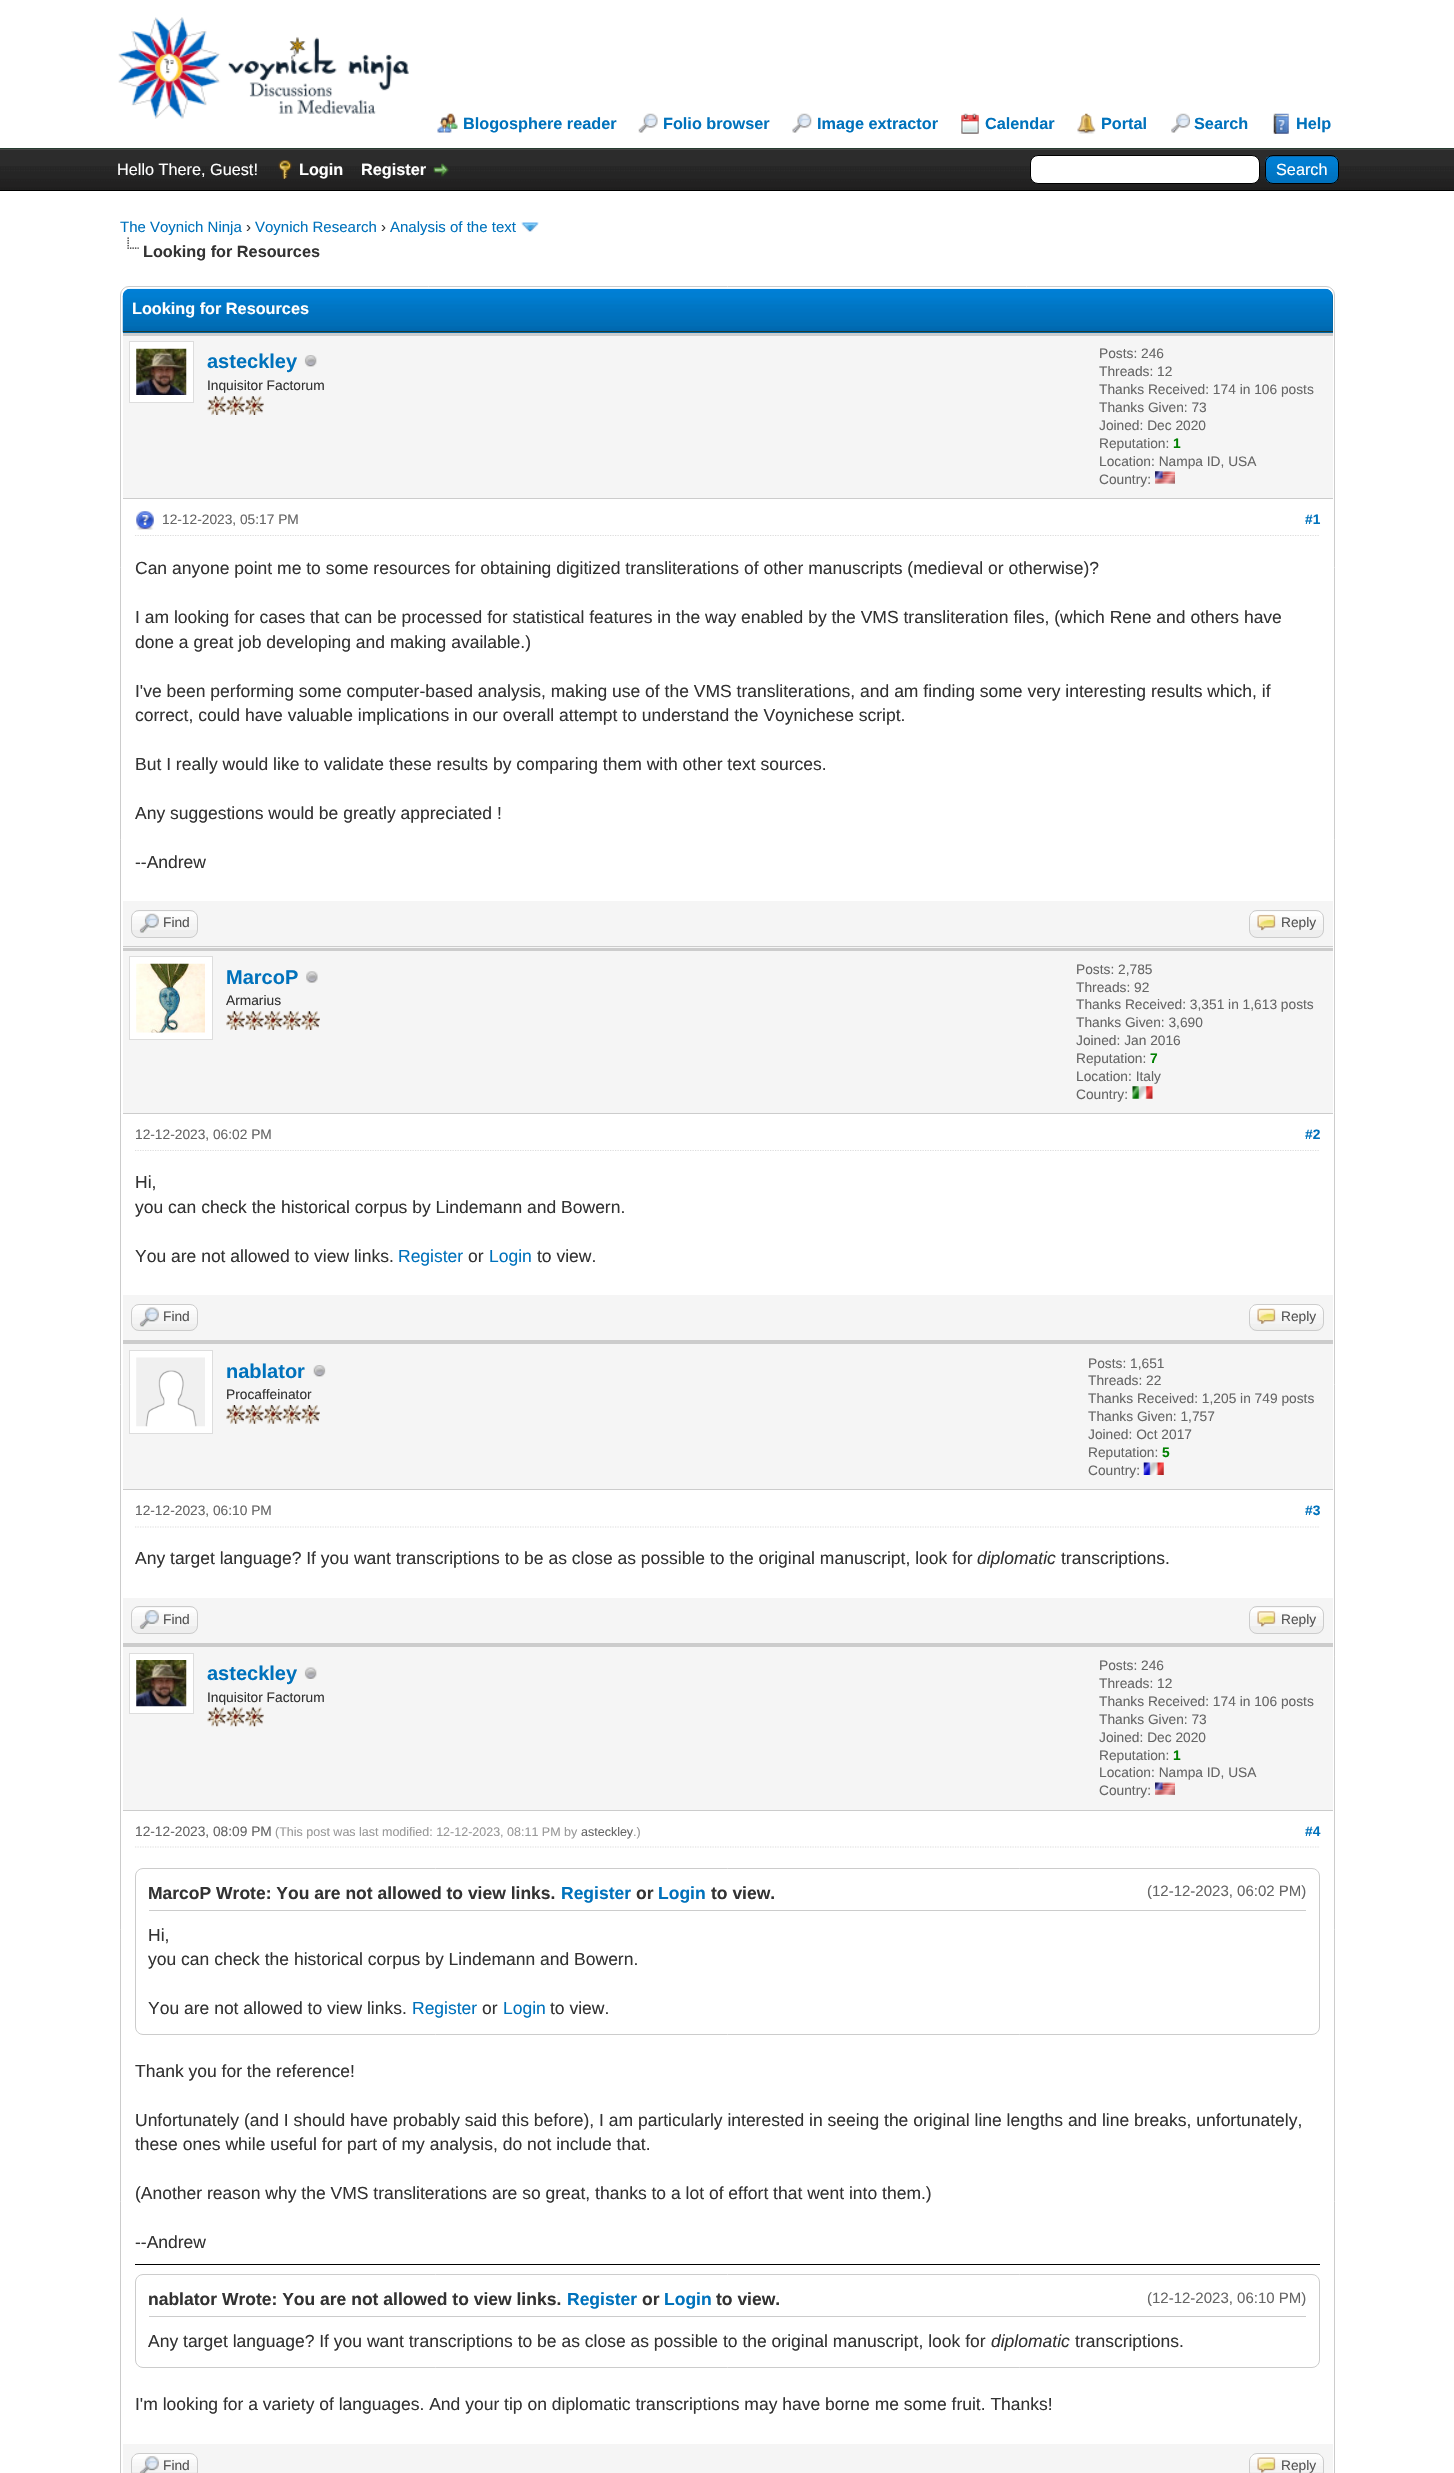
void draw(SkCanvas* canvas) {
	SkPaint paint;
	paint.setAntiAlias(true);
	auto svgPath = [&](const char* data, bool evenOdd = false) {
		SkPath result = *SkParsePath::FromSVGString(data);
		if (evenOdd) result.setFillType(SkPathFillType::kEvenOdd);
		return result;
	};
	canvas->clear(0xffffffff);
	paint.setColor(0xff263c30);
	canvas->drawRect(SkRect::MakeXYWH(0, 148, 1454, 1), paint);
	canvas->drawImageRect(SkImages::DeferredFromEncodedData(SkData::MakeFromFileName("img1.png")), SkRect::MakeXYWH(118, 17, 291, 102), SkSamplingOptions());
	canvas->drawImageRect(SkImages::DeferredFromEncodedData(SkData::MakeFromFileName("img2.png")), SkRect::MakeXYWH(437, 113, 21, 20), SkSamplingOptions());
	SkFont f1(fontMgr->matchFamilyStyle("Liberation Sans", SkFontStyle::Bold()), 16.25);
	f1.setSubpixel(true);
	paint.setColor(0xff0072bc);
	canvas->drawString("Blogosphere reader", 463, 129, f1, paint);
	canvas->drawImageRect(SkImages::DeferredFromEncodedData(SkData::MakeFromFileName("img3.png")), SkRect::MakeXYWH(638, 113, 20, 20), SkSamplingOptions());
	canvas->drawString("Folio browser", 663, 129, f1, paint);
	canvas->drawImageRect(SkImages::DeferredFromEncodedData(SkData::MakeFromFileName("img4.png")), SkRect::MakeXYWH(792, 113, 20, 20), SkSamplingOptions());
	canvas->drawString("Image extractor", 817, 129, f1, paint);
	canvas->drawImageRect(SkImages::DeferredFromEncodedData(SkData::MakeFromFileName("img5.png")), SkRect::MakeXYWH(961, 113, 18, 21), SkSamplingOptions());
	canvas->drawString("Calendar", 985, 129, f1, paint);
	canvas->drawImageRect(SkImages::DeferredFromEncodedData(SkData::MakeFromFileName("img6.png")), SkRect::MakeXYWH(1077, 113, 19, 21), SkSamplingOptions());
	canvas->drawString("Portal", 1101, 129, f1, paint);
	canvas->drawImageRect(SkImages::DeferredFromEncodedData(SkData::MakeFromFileName("img7.png")), SkRect::MakeXYWH(1171, 113, 19, 20), SkSamplingOptions());
	canvas->drawString("Search", 1194, 129, f1, paint);
	canvas->drawImageRect(SkImages::DeferredFromEncodedData(SkData::MakeFromFileName("img8.png")), SkRect::MakeXYWH(1273, 113, 16, 21), SkSamplingOptions());
	canvas->drawString("Help", 1296, 129, f1, paint);
	canvas->drawImageRect(SkImages::DeferredFromEncodedData(SkData::MakeFromFileName("img9.png")), SkRect::MakeXYWH(0, 150, 1454, 40), SkSamplingOptions());
	paint.setColor(0xff444444);
	canvas->drawRect(SkRect::MakeXYWH(0, 149, 1454, 1), paint);
	paint.setColor(0xff000000);
	canvas->drawRect(SkRect::MakeXYWH(0, 190, 1454, 1), paint);
	SkFont f2(fontMgr->matchFamilyStyle("Liberation Sans", SkFontStyle::Normal()), 16.25);
	f2.setSubpixel(true);
	paint.setColor(0xffffffff);
	canvas->drawString("Hello There, Guest!", 117, 175, f2, paint);
	canvas->drawImageRect(SkImages::DeferredFromEncodedData(SkData::MakeFromFileName("img10.png")), SkRect::MakeXYWH(278, 160, 14, 19), SkSamplingOptions());
	canvas->drawString("Login", 299, 175, f1, paint);
	canvas->drawString("Register", 361, 175, f1, paint);
	canvas->drawImageRect(SkImages::DeferredFromEncodedData(SkData::MakeFromFileName("img11.png")), SkRect::MakeXYWH(433, 163, 16, 14), SkSamplingOptions());
	canvas->drawRoundRect(SkRect::MakeXYWH(1030.5, 155.5, 229, 28), 7.5, 7.5, paint);
	paint.setStroke(true);
	paint.setStrokeWidth(1);
	paint.setColor(0xff000000);
	canvas->drawRoundRect(SkRect::MakeXYWH(1030.5, 155.5, 229, 28), 7.5, 7.5, paint);
	canvas->drawImageRect(SkImages::DeferredFromEncodedData(SkData::MakeFromFileName("img12.png")), SkRect::MakeXYWH(1265, 156, 74, 28), SkSamplingOptions());
	canvas->drawRoundRect(SkRect::MakeXYWH(1265.5, 155.5, 73, 28), 7.5, 7.5, paint);
	paint.setStroke(false);
	paint.setColor(0xffffffff);
	canvas->drawString("Search", 1276, 175, f2, paint);
	SkFont f3(fontMgr->matchFamilyStyle("Liberation Sans", SkFontStyle::Normal()), 15);
	f3.setSubpixel(true);
	paint.setColor(0xff0072bc);
	canvas->drawString("The Voynich Ninja", 120, 232, f3, paint);
	paint.setColor(0xff333333);
	canvas->drawString("›", 246, 232, f3, paint);
	paint.setColor(0xff0072bc);
	canvas->drawString("Voynich Research", 255, 232, f3, paint);
	paint.setColor(0xff333333);
	canvas->drawString("›", 381, 232, f3, paint);
	paint.setColor(0xff0072bc);
	canvas->drawString("Analysis of the text", 390, 232, f3, paint);
	canvas->drawImageRect(SkImages::DeferredFromEncodedData(SkData::MakeFromFileName("img13.png")), SkRect::MakeXYWH(521, 222, 18, 10), SkSamplingOptions());
	canvas->drawImageRect(SkImages::DeferredFromEncodedData(SkData::MakeFromFileName("img14.png")), SkRect::MakeXYWH(127, 237, 12, 12), SkSamplingOptions());
	paint.setColor(0xff333333);
	canvas->drawString("Looking for Resources", 143, 257, f1, paint);
	paint.setStroke(true);
	paint.setColor(0xffcccccc);
	canvas->drawRoundRect(SkRect::MakeXYWH(120.5, 286.5, 1214, 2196), 8.5, 8.5, paint);
	paint.setStroke(false);
	paint.setColor(0xff0066a2);
	canvas->drawPath(svgPath("M131 289H1325C1329.5 289 1333 292.5 1333 297V333H123V297C123 292.5 126.5 289 131 289Z"), paint);
	canvas->drawImageRect(SkImages::DeferredFromEncodedData(SkData::MakeFromFileName("img15.png")), SkRect::MakeXYWH(122, 288, 1211, 45), SkSamplingOptions());
	paint.setColor(0xff263c30);
	canvas->drawRect(SkRect::MakeXYWH(123, 331, 1210, 1), paint);
	paint.setColor(0xffffffff);
	canvas->drawString("Looking for Resources", 132, 314, f1, paint);
	paint.setColor(0xfff5f5f5);
	canvas->drawRect(SkRect::MakeXYWH(123, 336, 1210, 162), paint);
	paint.setColor(0xffcccccc);
	canvas->drawRect(SkRect::MakeXYWH(123, 333, 1210, 3), paint);
	canvas->drawRect(SkRect::MakeXYWH(123, 498, 1210, 1), paint);
	paint.setColor(0xffffffff);
	canvas->drawRect(SkRect::MakeXYWH(129.5, 341.5, 64, 61), paint);
	paint.setStroke(true);
	paint.setColor(0xffdddddd);
	canvas->drawRect(SkRect::MakeXYWH(129.5, 341.5, 64, 61), paint);
	canvas->drawImageRect(SkImages::DeferredFromEncodedData(SkData::MakeFromFileName("img16.png")), SkRect::MakeXYWH(136, 348, 51, 47), SkSamplingOptions());
	SkFont f4(fontMgr->matchFamilyStyle("Liberation Sans", SkFontStyle::Bold()), 20);
	f4.setSubpixel(true);
	paint.setStroke(false);
	paint.setColor(0xff0072bc);
	canvas->drawString("asteckley", 207, 368, f4, paint);
	canvas->drawImageRect(SkImages::DeferredFromEncodedData(SkData::MakeFromFileName("img17.png")), SkRect::MakeXYWH(304, 355, 13, 12), SkSamplingOptions());
	SkFont f5(fontMgr->matchFamilyStyle("Liberation Sans", SkFontStyle::Normal()), 13.75);
	f5.setSubpixel(true);
	paint.setColor(0xff333333);
	canvas->drawString("Inquisitor Factorum", 207, 390, f5, paint);
	canvas->drawImageRect(SkImages::DeferredFromEncodedData(SkData::MakeFromFileName("img18.png")), SkRect::MakeXYWH(207, 396, 20, 19), SkSamplingOptions());
	canvas->drawImageRect(SkImages::DeferredFromEncodedData(SkData::MakeFromFileName("img19.png")), SkRect::MakeXYWH(226, 396, 19, 19), SkSamplingOptions());
	canvas->drawImageRect(SkImages::DeferredFromEncodedData(SkData::MakeFromFileName("img20.png")), SkRect::MakeXYWH(245, 396, 19, 19), SkSamplingOptions());
	paint.setColor(0xff666666);
	canvas->drawString("Posts: 246", 1099, 358, f5, paint);
	canvas->drawString("Threads: 12", 1099, 376, f5, paint);
	canvas->drawString("Thanks Received: 174 in 106 posts", 1099, 394, f5, paint);
	canvas->drawString("Thanks Given: 73", 1099, 412, f5, paint);
	canvas->drawString("Joined: Dec 2020", 1099, 430, f5, paint);
	canvas->drawString("Reputation:", 1099, 448, f5, paint);
	SkFont f6(fontMgr->matchFamilyStyle("Liberation Sans", SkFontStyle::Bold()), 13.75);
	f6.setSubpixel(true);
	paint.setColor(0xff008000);
	canvas->drawString("1", 1173, 448, f6, paint);
	paint.setColor(0xff666666);
	canvas->drawString("Location: Nampa ID, USA", 1099, 466, f5, paint);
	canvas->drawString("Country:", 1099, 484, f5, paint);
	canvas->drawImageRect(SkImages::DeferredFromEncodedData(SkData::MakeFromFileName("img21.png")), SkRect::MakeXYWH(1155, 471, 20, 13), SkSamplingOptions());
	paint.setStroke(true);
	paint.setStrokeWidth(1.2);
	paint.setColor(0xffdddddd);
	paint.setPathEffect(SkDashPathEffect::Make({{1.25f, 1.25f}}, 0));
	canvas->drawPath(svgPath("M135 535.5H1320"), paint);
	paint.setPathEffect(nullptr);
	canvas->drawImageRect(SkImages::DeferredFromEncodedData(SkData::MakeFromFileName("img22.png")), SkRect::MakeXYWH(136, 511, 18, 19), SkSamplingOptions());
	paint.setStroke(false);
	paint.setColor(0xff666666);
	canvas->drawString("12-12-2023, 05:17 PM", 162, 524, f5, paint);
	paint.setColor(0xff0072bc);
	canvas->drawString("#1", 1305, 524, f6, paint);
	SkFont f7(fontMgr->matchFamilyStyle("Liberation Sans", SkFontStyle::Normal()), 17.5);
	f7.setSubpixel(true);
	paint.setColor(0xff333333);
	canvas->drawString("Can anyone point me to some resources for obtaining digitized transliterations of other manuscripts (medieval or otherwise)?", 135, 574, f7, paint);
	canvas->drawString("I am looking for cases that can be processed for statistical features in the way enabled by the VMS transliteration files, (which Rene and others have", 135, 623, f7, paint);
	canvas->drawString("done a great job developing and making available.)", 135, 648, f7, paint);
	canvas->drawString("I've been performing some computer-based analysis, making use of the VMS transliterations, and am finding some very interesting results which, if", 135, 697, f7, paint);
	canvas->drawString("correct, could have valuable implications in our overall attempt to understand the Voynichese script.", 135, 721, f7, paint);
	canvas->drawString("But I really would like to validate these results by comparing them with other text sources.", 135, 770, f7, paint);
	canvas->drawString("Any suggestions would be greatly appreciated !", 135, 819, f7, paint);
	canvas->drawString("--Andrew", 135, 868, f7, paint);
	paint.setColor(0xfff5f5f5);
	canvas->drawRect(SkRect::MakeXYWH(123, 901, 1210, 47), paint);
	paint.setColor(0xffcccccc);
	canvas->drawRect(SkRect::MakeXYWH(123, 946, 1210, 1), paint);
	paint.setColor(0xffeeeeee);
	canvas->drawRoundRect(SkRect::MakeXYWH(131, 910, 67, 28), 8, 8, paint);
	canvas->drawImageRect(SkImages::DeferredFromEncodedData(SkData::MakeFromFileName("img23.png")), SkRect::MakeXYWH(131, 911, 66, 19), SkSamplingOptions());
	paint.setStroke(true);
	paint.setStrokeWidth(1);
	paint.setColor(0xffcccccc);
	canvas->drawRoundRect(SkRect::MakeXYWH(131.5, 910.5, 66, 27), 7.5, 7.5, paint);
	canvas->drawImageRect(SkImages::DeferredFromEncodedData(SkData::MakeFromFileName("img24.png")), SkRect::MakeXYWH(139, 913, 20, 20), SkSamplingOptions());
	paint.setStroke(false);
	paint.setColor(0xff555555);
	canvas->drawString("Find", 163, 927, f5, paint);
	paint.setColor(0xffeeeeee);
	canvas->drawRoundRect(SkRect::MakeXYWH(1249, 910, 75, 28), 8, 8, paint);
	canvas->drawImageRect(SkImages::DeferredFromEncodedData(SkData::MakeFromFileName("img25.png")), SkRect::MakeXYWH(1249, 911, 75, 19), SkSamplingOptions());
	paint.setStroke(true);
	paint.setColor(0xffcccccc);
	canvas->drawRoundRect(SkRect::MakeXYWH(1249.5, 910.5, 74, 27), 7.5, 7.5, paint);
	canvas->drawImageRect(SkImages::DeferredFromEncodedData(SkData::MakeFromFileName("img26.png")), SkRect::MakeXYWH(1257, 914, 19, 17), SkSamplingOptions());
	paint.setStroke(false);
	paint.setColor(0xff555555);
	canvas->drawString("Reply", 1281, 927, f5, paint);
	paint.setColor(0xfff5f5f5);
	canvas->drawRect(SkRect::MakeXYWH(123, 951, 1210, 162), paint);
	paint.setColor(0xffcccccc);
	canvas->drawRect(SkRect::MakeXYWH(123, 948, 1210, 3), paint);
	canvas->drawRect(SkRect::MakeXYWH(123, 1113, 1210, 1), paint);
	paint.setColor(0xffffffff);
	canvas->drawRect(SkRect::MakeXYWH(129.5, 956.5, 83, 83), paint);
	paint.setStroke(true);
	paint.setColor(0xffdddddd);
	canvas->drawRect(SkRect::MakeXYWH(129.5, 956.5, 83, 83), paint);
	canvas->drawImageRect(SkImages::DeferredFromEncodedData(SkData::MakeFromFileName("img27.png")), SkRect::MakeXYWH(136, 963, 69, 70), SkSamplingOptions());
	paint.setStroke(false);
	paint.setColor(0xff0072bc);
	canvas->drawString("MarcoP", 226, 984, f4, paint);
	canvas->drawImageRect(SkImages::DeferredFromEncodedData(SkData::MakeFromFileName("img28.png")), SkRect::MakeXYWH(306, 971, 12, 12), SkSamplingOptions());
	paint.setColor(0xff333333);
	canvas->drawString("Armarius", 226, 1005, f5, paint);
	canvas->drawImageRect(SkImages::DeferredFromEncodedData(SkData::MakeFromFileName("img29.png")), SkRect::MakeXYWH(226, 1011, 19, 19), SkSamplingOptions());
	canvas->drawImageRect(SkImages::DeferredFromEncodedData(SkData::MakeFromFileName("img20.png")), SkRect::MakeXYWH(245, 1011, 19, 19), SkSamplingOptions());
	canvas->drawImageRect(SkImages::DeferredFromEncodedData(SkData::MakeFromFileName("img30.png")), SkRect::MakeXYWH(263, 1011, 20, 19), SkSamplingOptions());
	canvas->drawImageRect(SkImages::DeferredFromEncodedData(SkData::MakeFromFileName("img31.png")), SkRect::MakeXYWH(282, 1011, 20, 19), SkSamplingOptions());
	canvas->drawImageRect(SkImages::DeferredFromEncodedData(SkData::MakeFromFileName("img19.png")), SkRect::MakeXYWH(301, 1011, 19, 19), SkSamplingOptions());
	paint.setColor(0xff666666);
	canvas->drawString("Posts: 2,785", 1076, 974, f5, paint);
	canvas->drawString("Threads: 92", 1076, 992, f5, paint);
	canvas->drawString("Thanks Received: 3,351 in 1,613 posts", 1076, 1009, f5, paint);
	canvas->drawString("Thanks Given: 3,690", 1076, 1027, f5, paint);
	canvas->drawString("Joined: Jan 2016", 1076, 1045, f5, paint);
	canvas->drawString("Reputation:", 1076, 1063, f5, paint);
	paint.setColor(0xff008000);
	canvas->drawString("7", 1150, 1063, f6, paint);
	paint.setColor(0xff666666);
	canvas->drawString("Location: Italy", 1076, 1081, f5, paint);
	canvas->drawString("Country:", 1076, 1099, f5, paint);
	canvas->drawImageRect(SkImages::DeferredFromEncodedData(SkData::MakeFromFileName("img32.png")), SkRect::MakeXYWH(1132, 1086, 21, 13), SkSamplingOptions());
	paint.setStroke(true);
	paint.setStrokeWidth(1.2);
	paint.setColor(0xffdddddd);
	paint.setPathEffect(SkDashPathEffect::Make({{1.25f, 1.25f}}, 0));
	canvas->drawPath(svgPath("M135 1150.5H1320"), paint);
	paint.setPathEffect(nullptr);
	paint.setStroke(false);
	paint.setColor(0xff666666);
	canvas->drawString("12-12-2023, 06:02 PM", 135, 1139, f5, paint);
	paint.setColor(0xff0072bc);
	canvas->drawString("#2", 1305, 1139, f6, paint);
	paint.setColor(0xff333333);
	canvas->drawString("Hi,", 135, 1188, f7, paint);
	canvas->drawString("you can check the historical corpus by Lindemann and Bowern.", 135, 1213, f7, paint);
	canvas->drawString("You are not allowed to view links.", 135, 1262, f7, paint);
	paint.setColor(0xff0072bc);
	canvas->drawString("Register", 398, 1262, f7, paint);
	paint.setColor(0xff333333);
	canvas->drawString("or", 468, 1262, f7, paint);
	paint.setColor(0xff0072bc);
	canvas->drawString("Login", 489, 1262, f7, paint);
	paint.setColor(0xff333333);
	canvas->drawString("to view.", 537, 1262, f7, paint);
	paint.setColor(0xfff5f5f5);
	canvas->drawRect(SkRect::MakeXYWH(123, 1295, 1210, 45), paint);
	paint.setColor(0xffcccccc);
	canvas->drawRect(SkRect::MakeXYWH(123, 1340, 1210, 4), paint);
	canvas->drawImageRect(SkImages::DeferredFromEncodedData(SkData::MakeFromFileName("img33.png")), SkRect::MakeXYWH(131, 1305, 66, 26), SkSamplingOptions());
	paint.setStroke(true);
	paint.setStrokeWidth(1);
	canvas->drawRoundRect(SkRect::MakeXYWH(131.5, 1304.5, 66, 26), 7.5, 7.5, paint);
	canvas->drawImageRect(SkImages::DeferredFromEncodedData(SkData::MakeFromFileName("img34.png")), SkRect::MakeXYWH(139, 1307, 20, 20), SkSamplingOptions());
	paint.setStroke(false);
	paint.setColor(0xff555555);
	canvas->drawString("Find", 163, 1321, f5, paint);
	canvas->drawImageRect(SkImages::DeferredFromEncodedData(SkData::MakeFromFileName("img35.png")), SkRect::MakeXYWH(1249, 1305, 75, 26), SkSamplingOptions());
	paint.setStroke(true);
	paint.setColor(0xffcccccc);
	canvas->drawRoundRect(SkRect::MakeXYWH(1249.5, 1304.5, 74, 26), 7.5, 7.5, paint);
	canvas->drawImageRect(SkImages::DeferredFromEncodedData(SkData::MakeFromFileName("img36.png")), SkRect::MakeXYWH(1257, 1308, 19, 16), SkSamplingOptions());
	paint.setStroke(false);
	paint.setColor(0xff555555);
	canvas->drawString("Reply", 1281, 1321, f5, paint);
	paint.setColor(0xfff5f5f5);
	canvas->drawRect(SkRect::MakeXYWH(123, 1344, 1210, 145), paint);
	paint.setColor(0xffcccccc);
	canvas->drawRect(SkRect::MakeXYWH(123, 1489, 1210, 1), paint);
	paint.setColor(0xffffffff);
	canvas->drawRect(SkRect::MakeXYWH(129.5, 1350.5, 83, 83), paint);
	paint.setStroke(true);
	paint.setColor(0xffdddddd);
	canvas->drawRect(SkRect::MakeXYWH(129.5, 1350.5, 83, 83), paint);
	canvas->drawImageRect(SkImages::DeferredFromEncodedData(SkData::MakeFromFileName("img37.png")), SkRect::MakeXYWH(136, 1357, 69, 70), SkSamplingOptions());
	paint.setStroke(false);
	paint.setColor(0xff0072bc);
	canvas->drawString("nablator", 226, 1378, f4, paint);
	canvas->drawImageRect(SkImages::DeferredFromEncodedData(SkData::MakeFromFileName("img38.png")), SkRect::MakeXYWH(313, 1365, 13, 12), SkSamplingOptions());
	paint.setColor(0xff333333);
	canvas->drawString("Procaffeinator", 226, 1399, f5, paint);
	canvas->drawImageRect(SkImages::DeferredFromEncodedData(SkData::MakeFromFileName("img39.png")), SkRect::MakeXYWH(226, 1405, 19, 19), SkSamplingOptions());
	canvas->drawImageRect(SkImages::DeferredFromEncodedData(SkData::MakeFromFileName("img40.png")), SkRect::MakeXYWH(245, 1405, 19, 19), SkSamplingOptions());
	canvas->drawImageRect(SkImages::DeferredFromEncodedData(SkData::MakeFromFileName("img41.png")), SkRect::MakeXYWH(263, 1405, 20, 19), SkSamplingOptions());
	canvas->drawImageRect(SkImages::DeferredFromEncodedData(SkData::MakeFromFileName("img42.png")), SkRect::MakeXYWH(282, 1405, 20, 19), SkSamplingOptions());
	canvas->drawImageRect(SkImages::DeferredFromEncodedData(SkData::MakeFromFileName("img43.png")), SkRect::MakeXYWH(301, 1405, 19, 19), SkSamplingOptions());
	paint.setColor(0xff666666);
	canvas->drawString("Posts: 1,651", 1088, 1368, f5, paint);
	canvas->drawString("Threads: 22", 1088, 1385, f5, paint);
	canvas->drawString("Thanks Received: 1,205 in 749 posts", 1088, 1403, f5, paint);
	canvas->drawString("Thanks Given: 1,757", 1088, 1421, f5, paint);
	canvas->drawString("Joined: Oct 2017", 1088, 1439, f5, paint);
	canvas->drawString("Reputation:", 1088, 1457, f5, paint);
	paint.setColor(0xff008000);
	canvas->drawString("5", 1162, 1457, f6, paint);
	paint.setColor(0xff666666);
	canvas->drawString("Country:", 1088, 1475, f5, paint);
	canvas->drawImageRect(SkImages::DeferredFromEncodedData(SkData::MakeFromFileName("img44.png")), SkRect::MakeXYWH(1143, 1462, 21, 13), SkSamplingOptions());
	paint.setStroke(true);
	paint.setStrokeWidth(1.2);
	paint.setColor(0xffdddddd);
	paint.setPathEffect(SkDashPathEffect::Make({{1.25f, 1.25f}}, 0));
	canvas->drawPath(svgPath("M135 1527H1320"), paint);
	paint.setPathEffect(nullptr);
	paint.setStroke(false);
	paint.setColor(0xff666666);
	canvas->drawString("12-12-2023, 06:10 PM", 135, 1515, f5, paint);
	paint.setColor(0xff0072bc);
	canvas->drawString("#3", 1305, 1515, f6, paint);
	paint.setColor(0xff333333);
	canvas->drawString("Any target language? If you want transcriptions to be as close as possible to the original manuscript, look for", 135, 1564, f7, paint);
	SkFont f8(fontMgr->matchFamilyStyle("Liberation Sans", SkFontStyle::Italic()), 17.5);
	f8.setSubpixel(true);
	canvas->drawString("diplomatic", 977, 1564, f8, paint);
	canvas->drawString("transcriptions.", 1061, 1564, f7, paint);
	paint.setColor(0xfff5f5f5);
	canvas->drawRect(SkRect::MakeXYWH(123, 1598, 1210, 45), paint);
	paint.setColor(0xffcccccc);
	canvas->drawRect(SkRect::MakeXYWH(123, 1643, 1210, 4), paint);
	paint.setColor(0xffeeeeee);
	canvas->drawRoundRect(SkRect::MakeXYWH(131, 1606, 67, 28), 8, 8, paint);
	canvas->drawImageRect(SkImages::DeferredFromEncodedData(SkData::MakeFromFileName("img45.png")), SkRect::MakeXYWH(131, 1607, 66, 19), SkSamplingOptions());
	paint.setStroke(true);
	paint.setStrokeWidth(1);
	paint.setColor(0xffcccccc);
	canvas->drawRoundRect(SkRect::MakeXYWH(131.5, 1606.5, 66, 27), 7.5, 7.5, paint);
	canvas->drawImageRect(SkImages::DeferredFromEncodedData(SkData::MakeFromFileName("img46.png")), SkRect::MakeXYWH(139, 1610, 20, 19), SkSamplingOptions());
	paint.setStroke(false);
	paint.setColor(0xff555555);
	canvas->drawString("Find", 163, 1624, f5, paint);
	paint.setColor(0xffeeeeee);
	canvas->drawRoundRect(SkRect::MakeXYWH(1249, 1606, 75, 28), 8, 8, paint);
	canvas->drawImageRect(SkImages::DeferredFromEncodedData(SkData::MakeFromFileName("img47.png")), SkRect::MakeXYWH(1249, 1607, 75, 19), SkSamplingOptions());
	paint.setStroke(true);
	paint.setColor(0xffcccccc);
	canvas->drawRoundRect(SkRect::MakeXYWH(1249.5, 1606.5, 74, 27), 7.5, 7.5, paint);
	canvas->drawImageRect(SkImages::DeferredFromEncodedData(SkData::MakeFromFileName("img48.png")), SkRect::MakeXYWH(1257, 1611, 19, 16), SkSamplingOptions());
	paint.setStroke(false);
	paint.setColor(0xff555555);
	canvas->drawString("Reply", 1281, 1624, f5, paint);
	paint.setColor(0xfff5f5f5);
	canvas->drawRect(SkRect::MakeXYWH(123, 1647, 1210, 163), paint);
	paint.setColor(0xffcccccc);
	canvas->drawRect(SkRect::MakeXYWH(123, 1810, 1210, 1), paint);
	paint.setColor(0xffffffff);
	canvas->drawRect(SkRect::MakeXYWH(129.5, 1653.5, 64, 60), paint);
	paint.setStroke(true);
	paint.setColor(0xffdddddd);
	canvas->drawRect(SkRect::MakeXYWH(129.5, 1653.5, 64, 60), paint);
	canvas->drawImageRect(SkImages::DeferredFromEncodedData(SkData::MakeFromFileName("img49.png")), SkRect::MakeXYWH(136, 1660, 51, 47), SkSamplingOptions());
	paint.setStroke(false);
	paint.setColor(0xff0072bc);
	canvas->drawString("asteckley", 207, 1680, f4, paint);
	canvas->drawImageRect(SkImages::DeferredFromEncodedData(SkData::MakeFromFileName("img50.png")), SkRect::MakeXYWH(304, 1667, 13, 12), SkSamplingOptions());
	paint.setColor(0xff333333);
	canvas->drawString("Inquisitor Factorum", 207, 1702, f5, paint);
	canvas->drawImageRect(SkImages::DeferredFromEncodedData(SkData::MakeFromFileName("img51.png")), SkRect::MakeXYWH(207, 1707, 20, 20), SkSamplingOptions());
	canvas->drawImageRect(SkImages::DeferredFromEncodedData(SkData::MakeFromFileName("img52.png")), SkRect::MakeXYWH(226, 1707, 19, 20), SkSamplingOptions());
	canvas->drawImageRect(SkImages::DeferredFromEncodedData(SkData::MakeFromFileName("img53.png")), SkRect::MakeXYWH(245, 1707, 19, 20), SkSamplingOptions());
	paint.setColor(0xff666666);
	canvas->drawString("Posts: 246", 1099, 1670, f5, paint);
	canvas->drawString("Threads: 12", 1099, 1688, f5, paint);
	canvas->drawString("Thanks Received: 174 in 106 posts", 1099, 1706, f5, paint);
	canvas->drawString("Thanks Given: 73", 1099, 1724, f5, paint);
	canvas->drawString("Joined: Dec 2020", 1099, 1742, f5, paint);
	canvas->drawString("Reputation:", 1099, 1760, f5, paint);
	paint.setColor(0xff008000);
	canvas->drawString("1", 1173, 1760, f6, paint);
	paint.setColor(0xff666666);
	canvas->drawString("Location: Nampa ID, USA", 1099, 1777, f5, paint);
	canvas->drawString("Country:", 1099, 1795, f5, paint);
	canvas->drawImageRect(SkImages::DeferredFromEncodedData(SkData::MakeFromFileName("img54.png")), SkRect::MakeXYWH(1155, 1782, 20, 13), SkSamplingOptions());
	paint.setStroke(true);
	paint.setStrokeWidth(1.2);
	paint.setColor(0xffdddddd);
	paint.setPathEffect(SkDashPathEffect::Make({{1.25f, 1.25f}}, 0));
	canvas->drawPath(svgPath("M135 1847H1320"), paint);
	paint.setPathEffect(nullptr);
	paint.setStroke(false);
	paint.setColor(0xff666666);
	canvas->drawString("12-12-2023, 08:09 PM", 135, 1836, f5, paint);
	SkFont f9(fontMgr->matchFamilyStyle("Liberation Sans", SkFontStyle::Normal()), 12.5);
	f9.setSubpixel(true);
	paint.setColor(0xff999999);
	canvas->drawString("(This post was last modified: 12-12-2023, 08:11 PM by", 275, 1836, f9, paint);
	paint.setColor(0xff666666);
	canvas->drawString("asteckley", 581, 1836, f9, paint);
	paint.setColor(0xff999999);
	canvas->drawString(".)", 633, 1836, f9, paint);
	paint.setColor(0xff0072bc);
	canvas->drawString("#4", 1305, 1836, f6, paint);
	paint.setStroke(true);
	paint.setStrokeWidth(1);
	paint.setColor(0xffcccccc);
	canvas->drawRoundRect(SkRect::MakeXYWH(135.5, 1868.5, 1184, 166), 7.5, 7.5, paint);
	paint.setStroke(false);
	canvas->drawRect(SkRect::MakeXYWH(149, 1910, 1157, 1), paint);
	SkFont f10(fontMgr->matchFamilyStyle("Liberation Sans", SkFontStyle::Bold()), 17.5);
	f10.setSubpixel(true);
	paint.setColor(0xff333333);
	canvas->drawString("MarcoP Wrote: You are not allowed to view links.", 148, 1899, f10, paint);
	paint.setColor(0xff0072bc);
	canvas->drawString("Register", 561, 1899, f10, paint);
	paint.setColor(0xff333333);
	canvas->drawString("or", 636, 1899, f10, paint);
	paint.setColor(0xff0072bc);
	canvas->drawString("Login", 658, 1899, f10, paint);
	paint.setColor(0xff333333);
	canvas->drawString("to view.", 711, 1899, f10, paint);
	paint.setColor(0xff666666);
	canvas->drawString("(12-12-2023, 06:02 PM)", 1147, 1896, f3, paint);
	paint.setColor(0xff333333);
	canvas->drawString("Hi,", 148, 1941, f7, paint);
	canvas->drawString("you can check the historical corpus by Lindemann and Bowern.", 148, 1965, f7, paint);
	canvas->drawString("You are not allowed to view links.", 148, 2014, f7, paint);
	paint.setColor(0xff0072bc);
	canvas->drawString("Register", 412, 2014, f7, paint);
	paint.setColor(0xff333333);
	canvas->drawString("or", 482, 2014, f7, paint);
	paint.setColor(0xff0072bc);
	canvas->drawString("Login", 503, 2014, f7, paint);
	paint.setColor(0xff333333);
	canvas->drawString("to view.", 550, 2014, f7, paint);
	canvas->drawString("Thank you for the reference!", 135, 2077, f7, paint);
	canvas->drawString("Unfortunately (and I should have probably said this before), I am particularly interested in seeing the original line lengths and line breaks, unfortunately,", 135, 2126, f7, paint);
	canvas->drawString("these ones while useful for part of my analysis, do not include that.", 135, 2150, f7, paint);
	canvas->drawString("(Another reason why the VMS transliterations are so great, thanks to a lot of effort that went into them.)", 135, 2199, f7, paint);
	canvas->drawString("--Andrew", 135, 2248, f7, paint);
	paint.setColor(0xff000000);
	canvas->drawRect(SkRect::MakeXYWH(135, 2264, 1185, 1), paint);
	paint.setStroke(true);
	paint.setColor(0xffcccccc);
	canvas->drawRoundRect(SkRect::MakeXYWH(135.5, 2274.5, 1184, 93), 7.5, 7.5, paint);
	paint.setStroke(false);
	canvas->drawRect(SkRect::MakeXYWH(149, 2316, 1157, 1), paint);
	paint.setColor(0xff333333);
	canvas->drawString("nablator Wrote: You are not allowed to view links.", 148, 2305, f10, paint);
	paint.setColor(0xff0072bc);
	canvas->drawString("Register", 567, 2305, f10, paint);
	paint.setColor(0xff333333);
	canvas->drawString("or", 642, 2305, f10, paint);
	paint.setColor(0xff0072bc);
	canvas->drawString("Login", 664, 2305, f10, paint);
	paint.setColor(0xff333333);
	canvas->drawString("to view.", 716, 2305, f10, paint);
	paint.setColor(0xff666666);
	canvas->drawString("(12-12-2023, 06:10 PM)", 1147, 2303, f3, paint);
	paint.setColor(0xff333333);
	canvas->drawString("Any target language? If you want transcriptions to be as close as possible to the original manuscript, look for", 148, 2347, f7, paint);
	canvas->drawString("diplomatic", 991, 2347, f8, paint);
	canvas->drawString("transcriptions.", 1075, 2347, f7, paint);
	canvas->drawString("I'm looking for a variety of languages. And your tip on diplomatic transcriptions may have borne me some fruit. Thanks!", 135, 2410, f7, paint);
	paint.setColor(0xfff5f5f5);
	canvas->drawRect(SkRect::MakeXYWH(123, 2444, 1210, 29), paint);
	paint.setColor(0xffeeeeee);
	canvas->drawRoundRect(SkRect::MakeXYWH(131, 2453, 67, 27), 8, 8, paint);
	canvas->drawImageRect(SkImages::DeferredFromEncodedData(SkData::MakeFromFileName("img55.png")), SkRect::MakeXYWH(131, 2453, 66, 19), SkSamplingOptions());
	paint.setStroke(true);
	paint.setColor(0xffcccccc);
	canvas->drawRoundRect(SkRect::MakeXYWH(131.5, 2453.5, 66, 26), 7.5, 7.5, paint);
	canvas->drawImageRect(SkImages::DeferredFromEncodedData(SkData::MakeFromFileName("img56.png")), SkRect::MakeXYWH(139, 2456, 20, 17), SkSamplingOptions());
	paint.setStroke(false);
	paint.setColor(0xff555555);
	canvas->drawString("Find", 163, 2470, f5, paint);
	paint.setColor(0xffeeeeee);
	canvas->drawRoundRect(SkRect::MakeXYWH(1249, 2453, 75, 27), 8, 8, paint);
	canvas->drawImageRect(SkImages::DeferredFromEncodedData(SkData::MakeFromFileName("img57.png")), SkRect::MakeXYWH(1249, 2453, 75, 19), SkSamplingOptions());
	paint.setStroke(true);
	paint.setColor(0xffcccccc);
	canvas->drawRoundRect(SkRect::MakeXYWH(1249.5, 2453.5, 74, 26), 7.5, 7.5, paint);
	canvas->drawImageRect(SkImages::DeferredFromEncodedData(SkData::MakeFromFileName("img58.png")), SkRect::MakeXYWH(1257, 2457, 19, 16), SkSamplingOptions());
	paint.setStroke(false);
	paint.setColor(0xff555555);
	canvas->drawString("Reply", 1281, 2470, f5, paint);
}
